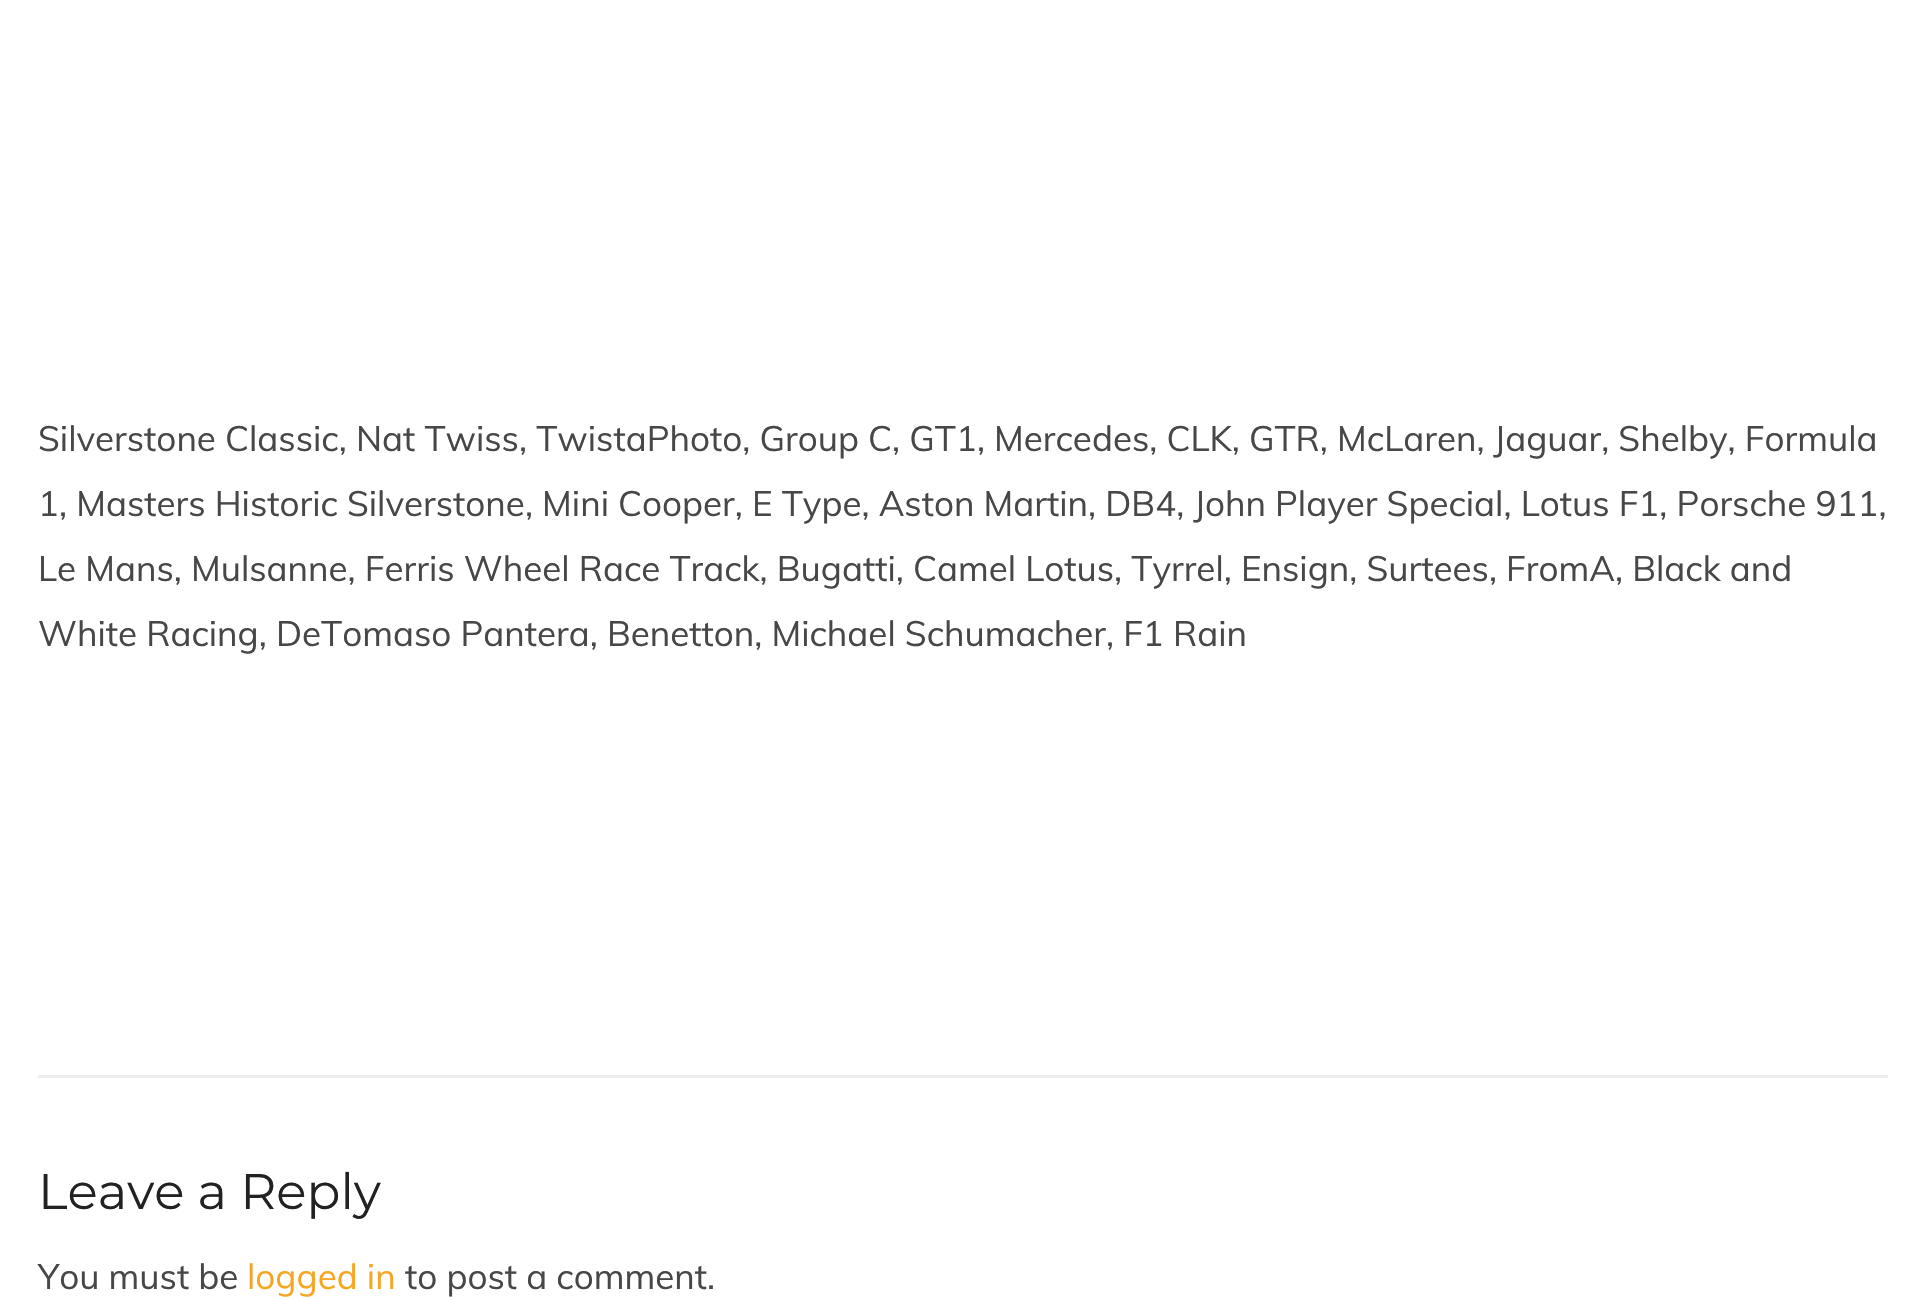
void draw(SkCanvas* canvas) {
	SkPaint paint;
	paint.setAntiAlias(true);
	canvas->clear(0xffffffff);
	SkFont f1(fontMgr->matchFamilyStyle("Muli", SkFontStyle::Normal()), 35);
	f1.setSubpixel(true);
	paint.setColor(0xff474747);
	canvas->drawString("Silverstone Classic, Nat Twiss, TwistaPhoto, Group C, GT1, Mercedes, CLK, GTR, McLaren, Jaguar, Shelby, Formula", 38, 451, f1, paint);
	canvas->drawString("1, Masters Historic Silverstone, Mini Cooper, E Type, Aston Martin, DB4, John Player Special, Lotus F1, Porsche 911,", 38, 516, f1, paint);
	canvas->drawString("Le Mans, Mulsanne, Ferris Wheel Race Track, Bugatti, Camel Lotus, Tyrrel, Ensign, Surtees, FromA, Black and", 38, 581, f1, paint);
	canvas->drawString("White Racing, DeTomaso Pantera, Benetton, Michael Schumacher, F1 Rain", 38, 646, f1, paint);
	paint.setColor(0xffeeeeee);
	canvas->drawRect(SkRect::MakeXYWH(38, 1075, 1850, 3), paint);
	SkFont f2(fontMgr->matchFamilyStyle("Montserrat", SkFontStyle::Normal()), 50);
	f2.setSubpixel(true);
	paint.setColor(0xff222222);
	canvas->drawString("Leave a Reply", 38, 1209, f2, paint);
	paint.setColor(0xff474747);
	canvas->drawString("You must be", 38, 1289, f1, paint);
	paint.setColor(0xfff5a623);
	canvas->drawString("logged in", 247, 1289, f1, paint);
	paint.setColor(0xff474747);
	canvas->drawString("to post a comment.", 405, 1289, f1, paint);
}
